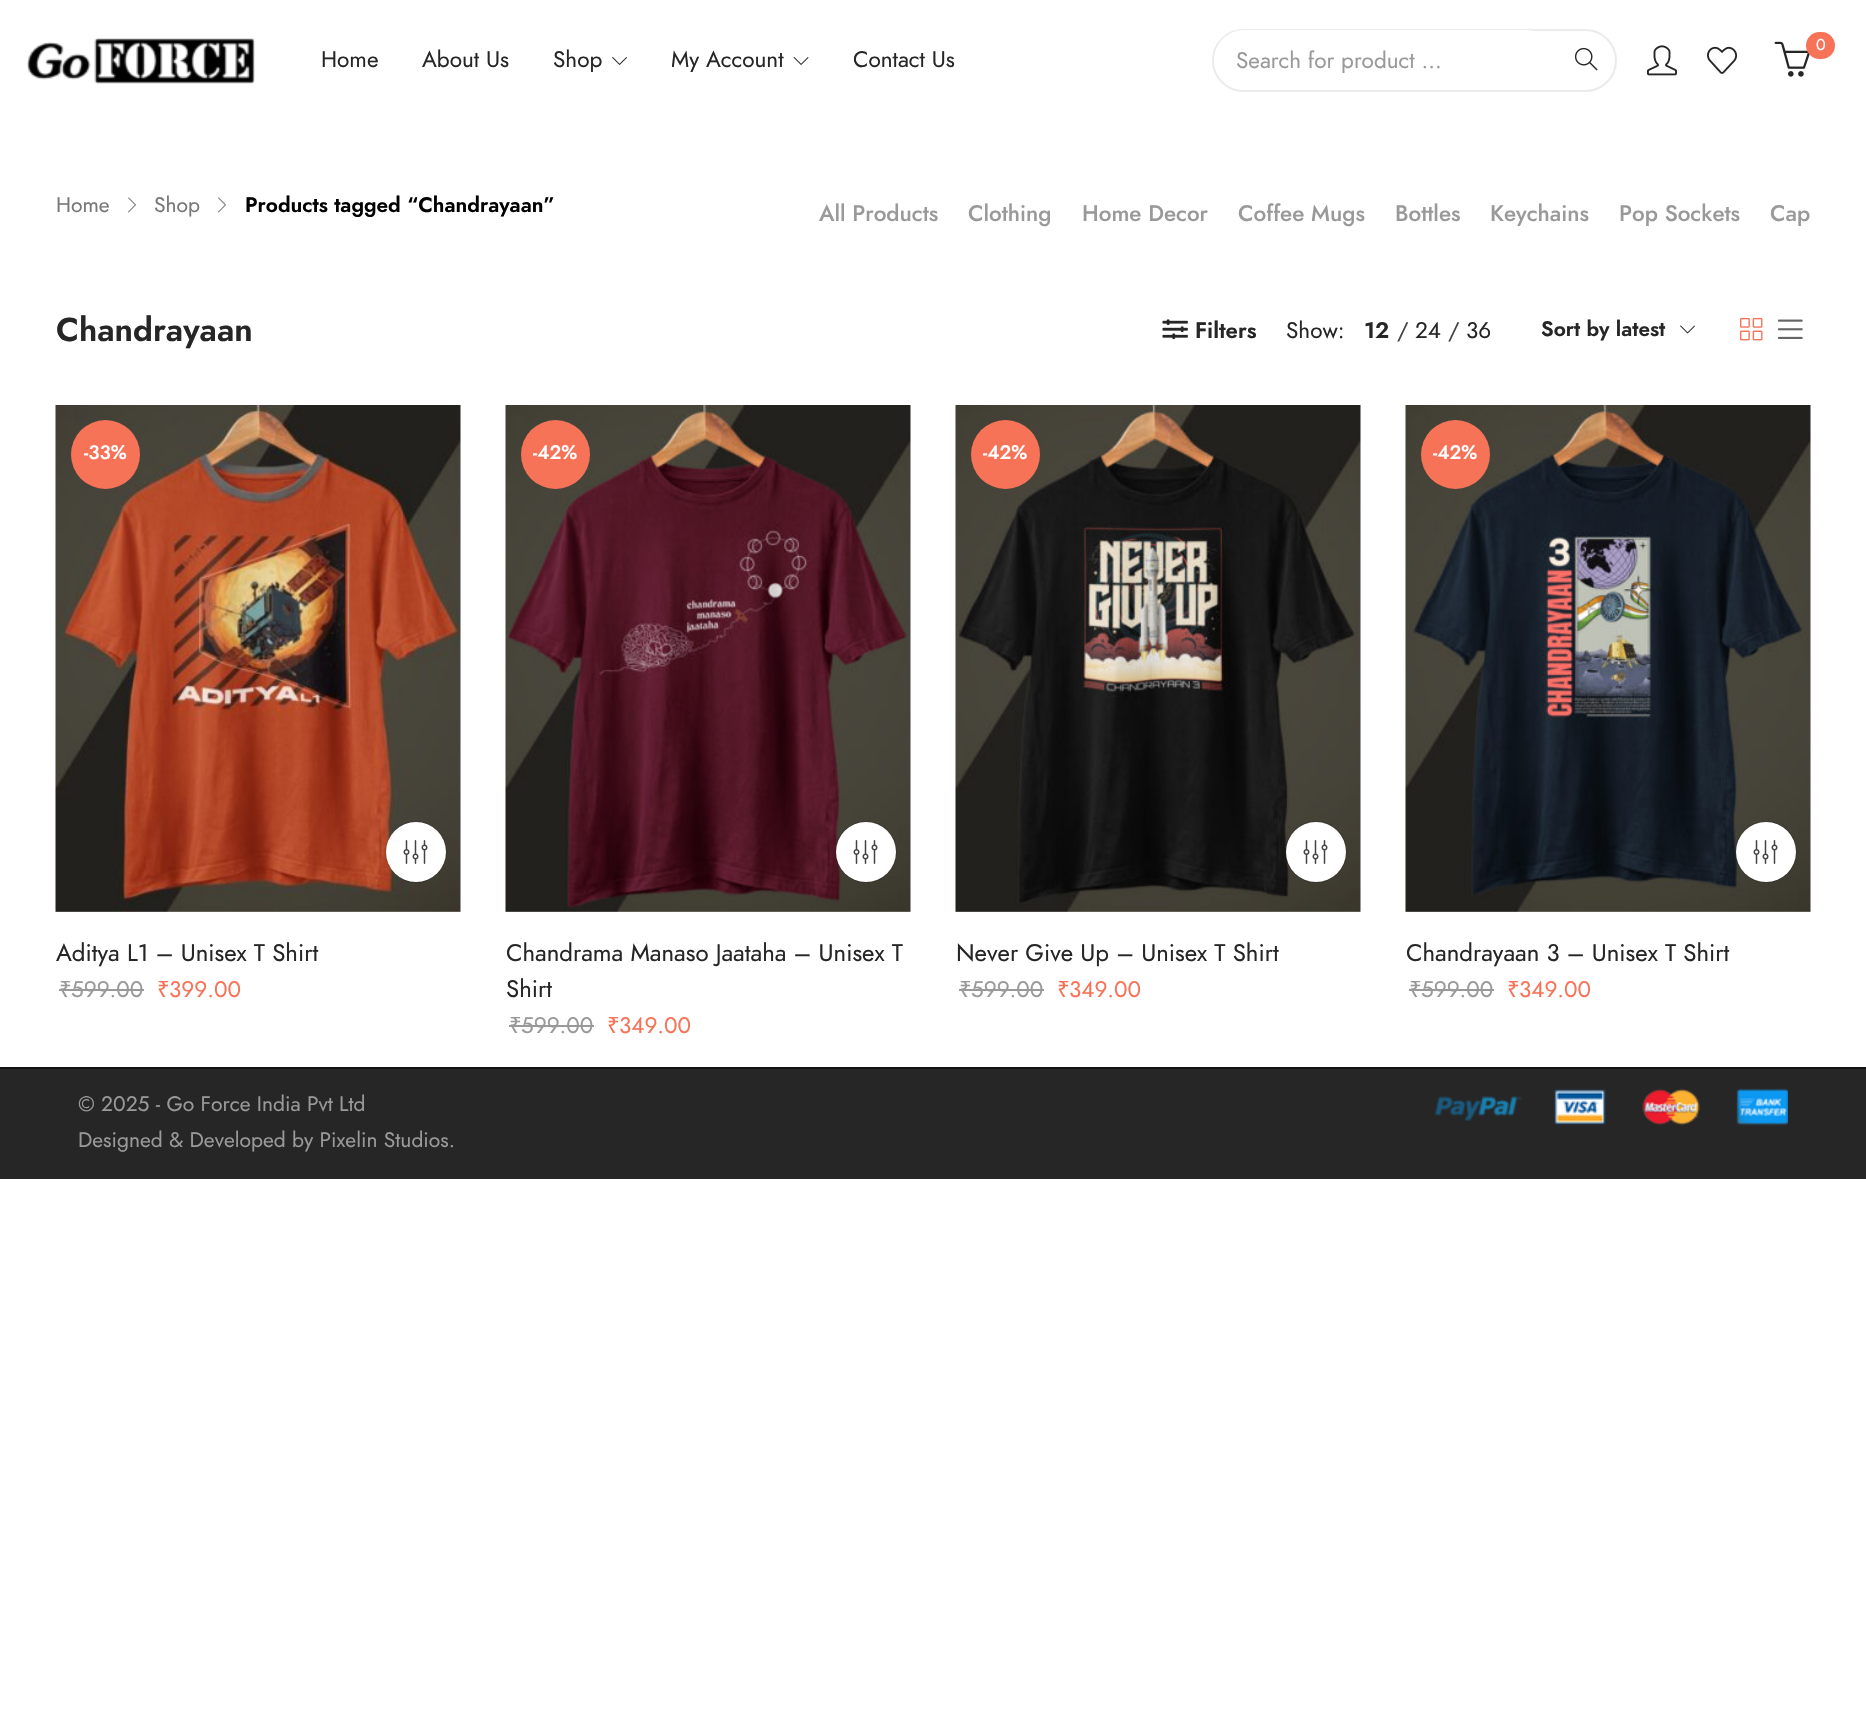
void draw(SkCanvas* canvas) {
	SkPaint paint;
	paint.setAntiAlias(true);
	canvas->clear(0xffffffff);
	canvas->drawImageRect(SkImages::DeferredFromEncodedData(SkData::MakeFromFileName("img1.png")), SkRect::MakeXYWH(27, 38, 228, 46), SkSamplingOptions());
	SkFont f1(fontMgr->matchFamilyStyle("Jost", SkFontStyle::Normal()), 22.5);
	f1.setSubpixel(true);
	paint.setColor(0xff262626);
	canvas->drawString("Home", 321, 67, f1, paint);
	canvas->drawString("About Us", 422, 67, f1, paint);
	canvas->drawString("Shop", 553, 67, f1, paint);
	canvas->drawImageRect(SkImages::DeferredFromEncodedData(SkData::MakeFromFileName("img2.png")), SkRect::MakeXYWH(612, 57, 15, 8), SkSamplingOptions());
	canvas->drawString("My Account", 671, 67, f1, paint);
	canvas->drawImageRect(SkImages::DeferredFromEncodedData(SkData::MakeFromFileName("img3.png")), SkRect::MakeXYWH(793, 57, 16, 8), SkSamplingOptions());
	canvas->drawString("Contact Us", 853, 67, f1, paint);
	paint.setStroke(true);
	paint.setStrokeWidth(2);
	paint.setColor(0xffebebeb);
	canvas->drawRoundRect(SkRect::MakeXYWH(1213, 30, 403, 61), 30.5, 30.5, paint);
	paint.setStroke(false);
	paint.setColor(0xffffffff);
	canvas->drawRoundRect(SkRect::MakeXYWH(1214, 30, 342, 60), 30, 30, paint);
	paint.setColor(0xff999999);
	canvas->drawString("Search for product ...", 1236, 68, f1, paint);
	canvas->drawImageRect(SkImages::DeferredFromEncodedData(SkData::MakeFromFileName("img4.png")), SkRect::MakeXYWH(1574, 47, 24, 24), SkSamplingOptions());
	canvas->drawImageRect(SkImages::DeferredFromEncodedData(SkData::MakeFromFileName("img5.png")), SkRect::MakeXYWH(1647, 45, 30, 31), SkSamplingOptions());
	canvas->drawImageRect(SkImages::DeferredFromEncodedData(SkData::MakeFromFileName("img6.png")), SkRect::MakeXYWH(1707, 46, 31, 28), SkSamplingOptions());
	canvas->drawImageRect(SkImages::DeferredFromEncodedData(SkData::MakeFromFileName("img7.png")), SkRect::MakeXYWH(1774, 41, 36, 36), SkSamplingOptions());
	paint.setColor(0xfff77358);
	canvas->drawRoundRect(SkRect::MakeXYWH(1806, 32, 29, 27), 13.5, 13.5, paint);
	SkFont f2(fontMgr->matchFamilyStyle("Jost", SkFontStyle::Normal()), 16);
	f2.setSubpixel(true);
	paint.setColor(0xffffffff);
	canvas->drawString("0", 1816, 50, f2, paint);
	SkFont f3(fontMgr->matchFamilyStyle("Jost", SkFontStyle::Normal()), 21);
	f3.setSubpixel(true);
	paint.setColor(0xff777777);
	canvas->drawString("Home", 56, 212, f3, paint);
	canvas->drawImageRect(SkImages::DeferredFromEncodedData(SkData::MakeFromFileName("img8.png")), SkRect::MakeXYWH(128, 197, 8, 16), SkSamplingOptions());
	canvas->drawString("Shop", 154, 212, f3, paint);
	canvas->drawImageRect(SkImages::DeferredFromEncodedData(SkData::MakeFromFileName("img8.png")), SkRect::MakeXYWH(218, 197, 8, 16), SkSamplingOptions());
	SkFont f4(fontMgr->matchFamilyStyle("Jost", SkFontStyle(600, SkFontStyle::kNormal_Width, SkFontStyle::kUpright_Slant)), 21);
	f4.setSubpixel(true);
	paint.setColor(0xff000000);
	canvas->drawString("Products tagged “Chandrayaan”", 245, 212, f4, paint);
	SkFont f5(fontMgr->matchFamilyStyle("Jost", SkFontStyle(500, SkFontStyle::kNormal_Width, SkFontStyle::kUpright_Slant)), 22.5);
	f5.setSubpixel(true);
	paint.setColor(0xff999999);
	canvas->drawString("All Products", 819, 221, f5, paint);
	canvas->drawString("Clothing", 968, 221, f5, paint);
	canvas->drawString("Home Decor", 1082, 221, f5, paint);
	canvas->drawString("Coffee Mugs", 1238, 221, f5, paint);
	canvas->drawString("Bottles", 1395, 221, f5, paint);
	canvas->drawString("Keychains", 1490, 221, f5, paint);
	canvas->drawString("Pop Sockets", 1619, 221, f5, paint);
	canvas->drawString("Cap", 1770, 221, f5, paint);
	SkFont f6(fontMgr->matchFamilyStyle("Jost", SkFontStyle(600, SkFontStyle::kNormal_Width, SkFontStyle::kUpright_Slant)), 33);
	f6.setSubpixel(true);
	paint.setColor(0xff262626);
	canvas->drawString("Chandrayaan", 56, 341, f6, paint);
	canvas->drawImageRect(SkImages::DeferredFromEncodedData(SkData::MakeFromFileName("img9.png")), SkRect::MakeXYWH(1162, 319, 26, 21), SkSamplingOptions());
	SkFont f7(fontMgr->matchFamilyStyle("Jost", SkFontStyle(600, SkFontStyle::kNormal_Width, SkFontStyle::kUpright_Slant)), 22.5);
	f7.setSubpixel(true);
	canvas->drawString("Filters", 1195, 338, f7, paint);
	canvas->drawString("Show:", 1286, 338, f1, paint);
	canvas->drawString("12", 1364, 338, f7, paint);
	paint.setColor(0xff444444);
	canvas->drawString("/", 1397, 338, f1, paint);
	paint.setColor(0xff262626);
	canvas->drawString("24", 1415, 338, f1, paint);
	paint.setColor(0xff444444);
	canvas->drawString("/", 1448, 338, f1, paint);
	paint.setColor(0xff262626);
	canvas->drawString("36", 1466, 338, f1, paint);
	canvas->drawString("Sort by latest", 1541, 336, f4, paint);
	canvas->drawImageRect(SkImages::DeferredFromEncodedData(SkData::MakeFromFileName("img10.png")), SkRect::MakeXYWH(1680, 325, 15, 9), SkSamplingOptions());
	canvas->drawImageRect(SkImages::DeferredFromEncodedData(SkData::MakeFromFileName("img11.png")), SkRect::MakeXYWH(1740, 317, 23, 24), SkSamplingOptions());
	canvas->drawImageRect(SkImages::DeferredFromEncodedData(SkData::MakeFromFileName("img12.png")), SkRect::MakeXYWH(1777, 319, 26, 20), SkSamplingOptions());
	canvas->drawImageRect(SkImages::DeferredFromEncodedData(SkData::MakeFromFileName("img13.png")), SkRect::MakeXYWH(55, 405, 406, 507), SkSamplingOptions());
	paint.setColor(0xfff77358);
	canvas->drawCircle(105.5, 454.5, 34.5, paint);
	SkFont f8(fontMgr->matchFamilyStyle("Jost", SkFontStyle(500, SkFontStyle::kNormal_Width, SkFontStyle::kUpright_Slant)), 19.5);
	f8.setSubpixel(true);
	paint.setColor(0xffffffff);
	canvas->drawString("-33%", 84, 459, f8, paint);
	paint.setColor(0x33000000);
	paint.setMaskFilter(SkMaskFilter::MakeBlur(kNormal_SkBlurStyle, 1));
	canvas->drawRoundRect(SkRect::MakeXYWH(386, 822, 60, 60), 30, 30, paint);
	paint.setMaskFilter(nullptr);
	paint.setMaskFilter(SkMaskFilter::MakeBlur(kNormal_SkBlurStyle, 1));
	canvas->drawRoundRect(SkRect::MakeXYWH(386, 822, 60, 60), 30, 30, paint);
	paint.setMaskFilter(nullptr);
	paint.setColor(0xffffffff);
	canvas->drawCircle(416, 852, 30, paint);
	canvas->drawImageRect(SkImages::DeferredFromEncodedData(SkData::MakeFromFileName("img14.png")), SkRect::MakeXYWH(403, 840, 25, 24), SkSamplingOptions());
	SkFont f9(fontMgr->matchFamilyStyle("Jost", SkFontStyle::Normal()), 24);
	f9.setSubpixel(true);
	paint.setColor(0xff262626);
	canvas->drawString("Aditya L1 – Unisex T Shirt", 56, 961, f9, paint);
	SkFont f10(fontMgr->matchFamilyStyle("Noto Sans", SkFontStyle::Normal()), 22.5);
	f10.setSubpixel(true);
	paint.setColor(0xff999999);
	canvas->drawString("₹", 59, 997, f10, paint);
	canvas->drawString("599.00", 71, 997, f1, paint);
	canvas->drawRect(SkRect::MakeXYWH(72, 989, 72, 2), paint);
	canvas->drawRect(SkRect::MakeXYWH(59, 989, 13, 2), paint);
	paint.setColor(0xfff77358);
	canvas->drawString("₹", 157, 997, f10, paint);
	canvas->drawString("399.00", 169, 997, f1, paint);
	canvas->drawImageRect(SkImages::DeferredFromEncodedData(SkData::MakeFromFileName("img15.png")), SkRect::MakeXYWH(505, 405, 406, 507), SkSamplingOptions());
	canvas->drawCircle(555.5, 454.5, 34.5, paint);
	paint.setColor(0xffffffff);
	canvas->drawString("-42%", 533, 459, f8, paint);
	paint.setColor(0x33000000);
	paint.setMaskFilter(SkMaskFilter::MakeBlur(kNormal_SkBlurStyle, 1));
	canvas->drawRoundRect(SkRect::MakeXYWH(836, 822, 60, 60), 30, 30, paint);
	paint.setMaskFilter(nullptr);
	paint.setMaskFilter(SkMaskFilter::MakeBlur(kNormal_SkBlurStyle, 1));
	canvas->drawRoundRect(SkRect::MakeXYWH(836, 822, 60, 60), 30, 30, paint);
	paint.setMaskFilter(nullptr);
	paint.setColor(0xffffffff);
	canvas->drawCircle(866, 852, 30, paint);
	canvas->drawImageRect(SkImages::DeferredFromEncodedData(SkData::MakeFromFileName("img14.png")), SkRect::MakeXYWH(853, 840, 25, 24), SkSamplingOptions());
	paint.setColor(0xff262626);
	canvas->drawString("Chandrama Manaso Jaataha – Unisex T", 506, 961, f9, paint);
	canvas->drawString("Shirt", 506, 997, f9, paint);
	paint.setColor(0xff999999);
	canvas->drawString("₹", 509, 1033, f10, paint);
	canvas->drawString("599.00", 521, 1033, f1, paint);
	canvas->drawRect(SkRect::MakeXYWH(522, 1025, 72, 2), paint);
	canvas->drawRect(SkRect::MakeXYWH(509, 1025, 13, 2), paint);
	paint.setColor(0xfff77358);
	canvas->drawString("₹", 607, 1033, f10, paint);
	canvas->drawString("349.00", 619, 1033, f1, paint);
	canvas->drawImageRect(SkImages::DeferredFromEncodedData(SkData::MakeFromFileName("img16.png")), SkRect::MakeXYWH(955, 405, 406, 507), SkSamplingOptions());
	canvas->drawCircle(1005.5, 454.5, 34.5, paint);
	paint.setColor(0xffffffff);
	canvas->drawString("-42%", 983, 459, f8, paint);
	paint.setColor(0x33000000);
	paint.setMaskFilter(SkMaskFilter::MakeBlur(kNormal_SkBlurStyle, 1));
	canvas->drawRoundRect(SkRect::MakeXYWH(1286, 822, 60, 60), 30, 30, paint);
	paint.setMaskFilter(nullptr);
	paint.setMaskFilter(SkMaskFilter::MakeBlur(kNormal_SkBlurStyle, 1));
	canvas->drawRoundRect(SkRect::MakeXYWH(1286, 822, 60, 60), 30, 30, paint);
	paint.setMaskFilter(nullptr);
	paint.setColor(0xffffffff);
	canvas->drawCircle(1316, 852, 30, paint);
	canvas->drawImageRect(SkImages::DeferredFromEncodedData(SkData::MakeFromFileName("img14.png")), SkRect::MakeXYWH(1303, 840, 25, 24), SkSamplingOptions());
	paint.setColor(0xff262626);
	canvas->drawString("Never Give Up – Unisex T Shirt", 956, 961, f9, paint);
	paint.setColor(0xff999999);
	canvas->drawString("₹", 959, 997, f10, paint);
	canvas->drawString("599.00", 971, 997, f1, paint);
	canvas->drawRect(SkRect::MakeXYWH(972, 989, 72, 2), paint);
	canvas->drawRect(SkRect::MakeXYWH(959, 989, 13, 2), paint);
	paint.setColor(0xfff77358);
	canvas->drawString("₹", 1057, 997, f10, paint);
	canvas->drawString("349.00", 1069, 997, f1, paint);
	canvas->drawImageRect(SkImages::DeferredFromEncodedData(SkData::MakeFromFileName("img17.png")), SkRect::MakeXYWH(1405, 405, 406, 507), SkSamplingOptions());
	canvas->drawCircle(1455.5, 454.5, 34.5, paint);
	paint.setColor(0xffffffff);
	canvas->drawString("-42%", 1433, 459, f8, paint);
	paint.setColor(0x33000000);
	paint.setMaskFilter(SkMaskFilter::MakeBlur(kNormal_SkBlurStyle, 1));
	canvas->drawRoundRect(SkRect::MakeXYWH(1736, 822, 60, 60), 30, 30, paint);
	paint.setMaskFilter(nullptr);
	paint.setMaskFilter(SkMaskFilter::MakeBlur(kNormal_SkBlurStyle, 1));
	canvas->drawRoundRect(SkRect::MakeXYWH(1736, 822, 60, 60), 30, 30, paint);
	paint.setMaskFilter(nullptr);
	paint.setColor(0xffffffff);
	canvas->drawCircle(1766, 852, 30, paint);
	canvas->drawImageRect(SkImages::DeferredFromEncodedData(SkData::MakeFromFileName("img14.png")), SkRect::MakeXYWH(1753, 840, 25, 24), SkSamplingOptions());
	paint.setColor(0xff262626);
	canvas->drawString("Chandrayaan 3 – Unisex T Shirt", 1406, 961, f9, paint);
	paint.setColor(0xff999999);
	canvas->drawString("₹", 1409, 997, f10, paint);
	canvas->drawString("599.00", 1421, 997, f1, paint);
	canvas->drawRect(SkRect::MakeXYWH(1422, 989, 72, 2), paint);
	canvas->drawRect(SkRect::MakeXYWH(1409, 989, 13, 2), paint);
	paint.setColor(0xfff77358);
	canvas->drawString("₹", 1507, 997, f10, paint);
	canvas->drawString("349.00", 1519, 997, f1, paint);
	paint.setColor(0xff262626);
	canvas->drawRect(SkRect::MakeXYWH(0, 1069, 1866, 110), paint);
	paint.setColor(0xff121212);
	canvas->drawRect(SkRect::MakeXYWH(0, 1067, 1866, 2), paint);
	paint.setColor(0xff999999);
	canvas->drawString("© 2025 - Go Force India Pvt Ltd", 78, 1111, f3, paint);
	canvas->drawString("Designed & Developed by Pixelin Studios.", 78, 1147, f3, paint);
	canvas->drawImageRect(SkImages::DeferredFromEncodedData(SkData::MakeFromFileName("img18.png")), SkRect::MakeXYWH(1434, 1088, 354, 38), SkSamplingOptions());
}
